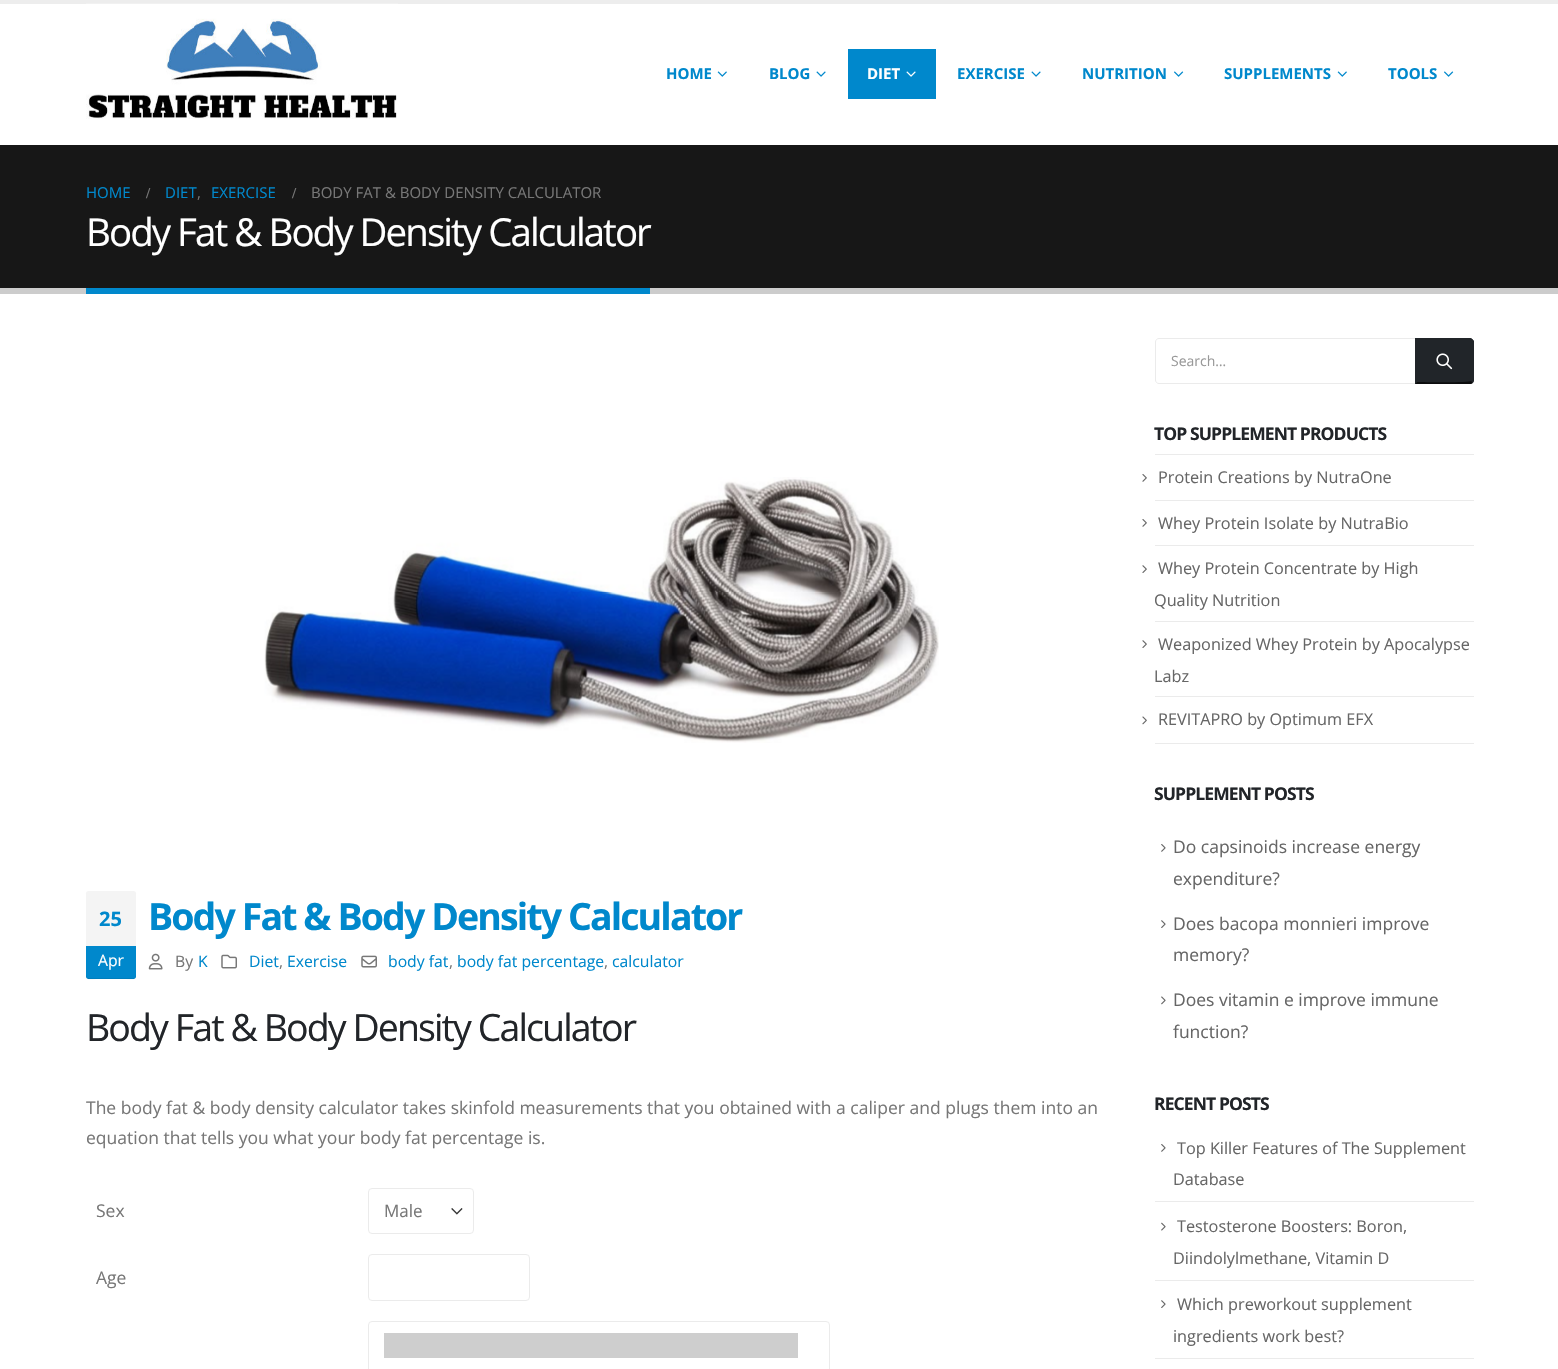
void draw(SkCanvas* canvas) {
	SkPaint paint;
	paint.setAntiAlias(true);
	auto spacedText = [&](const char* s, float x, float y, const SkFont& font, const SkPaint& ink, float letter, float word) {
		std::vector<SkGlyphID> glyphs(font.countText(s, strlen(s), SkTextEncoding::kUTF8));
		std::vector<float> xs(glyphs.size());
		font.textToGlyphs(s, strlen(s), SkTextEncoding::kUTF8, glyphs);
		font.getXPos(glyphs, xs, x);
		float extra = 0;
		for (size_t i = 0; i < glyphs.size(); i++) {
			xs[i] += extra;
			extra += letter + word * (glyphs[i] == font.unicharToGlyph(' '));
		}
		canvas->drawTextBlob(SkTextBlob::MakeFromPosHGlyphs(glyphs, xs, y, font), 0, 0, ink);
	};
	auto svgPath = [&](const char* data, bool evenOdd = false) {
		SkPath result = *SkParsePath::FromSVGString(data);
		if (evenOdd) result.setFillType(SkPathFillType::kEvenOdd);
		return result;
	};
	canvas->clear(0xffffffff);
	paint.setColor(0xffededed);
	canvas->drawRect(SkRect::MakeXYWH(0, 0, 1558, 4), paint);
	canvas->drawImageRect(SkImages::DeferredFromEncodedData(SkData::MakeFromFileName("img1.png")), SkRect::MakeXYWH(86, 3, 312, 116), SkSamplingOptions());
	SkFont f1(fontMgr->matchFamilyStyle("Open Sans", SkFontStyle::Bold()), 15);
	f1.setSubpixel(true);
	paint.setColor(0xff0088cc);
	canvas->drawString("HOME", 666, 79, f1, paint);
	canvas->drawImageRect(SkImages::DeferredFromEncodedData(SkData::MakeFromFileName("img2.png")), SkRect::MakeXYWH(717, 71, 10, 6), SkSamplingOptions());
	canvas->drawString("BLOG", 769, 79, f1, paint);
	canvas->drawImageRect(SkImages::DeferredFromEncodedData(SkData::MakeFromFileName("img3.png")), SkRect::MakeXYWH(816, 71, 10, 6), SkSamplingOptions());
	canvas->drawRect(SkRect::MakeXYWH(848, 49, 88, 50), paint);
	paint.setColor(0xffffffff);
	canvas->drawString("DIET", 867, 79, f1, paint);
	canvas->drawImageRect(SkImages::DeferredFromEncodedData(SkData::MakeFromFileName("img4.png")), SkRect::MakeXYWH(906, 71, 10, 6), SkSamplingOptions());
	paint.setColor(0xff0088cc);
	canvas->drawString("EXERCISE", 957, 79, f1, paint);
	canvas->drawImageRect(SkImages::DeferredFromEncodedData(SkData::MakeFromFileName("img3.png")), SkRect::MakeXYWH(1031, 71, 10, 6), SkSamplingOptions());
	canvas->drawString("NUTRITION", 1082, 79, f1, paint);
	canvas->drawImageRect(SkImages::DeferredFromEncodedData(SkData::MakeFromFileName("img5.png")), SkRect::MakeXYWH(1174, 71, 10, 6), SkSamplingOptions());
	canvas->drawString("SUPPLEMENTS", 1224, 79, f1, paint);
	canvas->drawImageRect(SkImages::DeferredFromEncodedData(SkData::MakeFromFileName("img2.png")), SkRect::MakeXYWH(1337, 71, 10, 6), SkSamplingOptions());
	canvas->drawString("TOOLS", 1388, 79, f1, paint);
	canvas->drawImageRect(SkImages::DeferredFromEncodedData(SkData::MakeFromFileName("img5.png")), SkRect::MakeXYWH(1444, 71, 10, 6), SkSamplingOptions());
	paint.setColor(0xff171717);
	canvas->drawRect(SkRect::MakeXYWH(0, 145, 1558, 143), paint);
	paint.setColor(0xffcccccc);
	canvas->drawRect(SkRect::MakeXYWH(0, 288, 1558, 6), paint);
	SkFont f2(fontMgr->matchFamilyStyle("Open Sans", SkFontStyle::Normal()), 15);
	f2.setSubpixel(true);
	paint.setColor(0xff0088cc);
	canvas->drawString("HOME", 86, 198, f2, paint);
	SkFont f3(fontMgr->matchFamilyStyle("Liberation Serif", SkFontStyle::Bold()), 15);
	f3.setSubpixel(true);
	paint.setColor(0xff777777);
	canvas->drawString("/", 146, 198, f3, paint);
	paint.setColor(0xff0088cc);
	canvas->drawString("DIET", 165, 198, f2, paint);
	paint.setColor(0xff777777);
	canvas->drawString(",", 197, 198, f2, paint);
	paint.setColor(0xff0088cc);
	canvas->drawString("EXERCISE", 211, 198, f2, paint);
	paint.setColor(0xff777777);
	canvas->drawString("/", 292, 198, f3, paint);
	canvas->drawString("BODY FAT & BODY DENSITY CALCULATOR", 311, 198, f2, paint);
	SkFont f4(fontMgr->matchFamilyStyle("Open Sans", SkFontStyle::Normal()), 38.5);
	f4.setSubpixel(true);
	paint.setColor(0xffffffff);
	spacedText("Body Fat & Body Density Calculator", 86, 246, f4, paint, -1.95, 0);
	paint.setColor(0xff0088cc);
	canvas->drawRect(SkRect::MakeXYWH(86, 288, 564, 6), paint);
	canvas->drawImageRect(SkImages::DeferredFromEncodedData(SkData::MakeFromFileName("img6.png")), SkRect::MakeXYWH(264, 477, 675, 266), SkSamplingOptions());
	SkFont f5(fontMgr->matchFamilyStyle("Open Sans", SkFontStyle::Bold()), 37.5);
	f5.setSubpixel(true);
	spacedText("Body Fat & Body Density Calculator", 148, 930, f5, paint, -1.9, 0);
	canvas->drawImageRect(SkImages::DeferredFromEncodedData(SkData::MakeFromFileName("img7.png")), SkRect::MakeXYWH(148, 953, 15, 17), SkSamplingOptions());
	SkFont f6(fontMgr->matchFamilyStyle("Open Sans", SkFontStyle::Normal()), 15.75);
	f6.setSubpixel(true);
	paint.setColor(0xff777777);
	canvas->drawString("By", 175, 967, f6, paint);
	paint.setColor(0xff0088cc);
	canvas->drawString("K", 198, 967, f6, paint);
	canvas->drawImageRect(SkImages::DeferredFromEncodedData(SkData::MakeFromFileName("img8.png")), SkRect::MakeXYWH(221, 954, 16, 15), SkSamplingOptions());
	canvas->drawString("Diet", 249, 967, f6, paint);
	paint.setColor(0xff777777);
	canvas->drawString(",", 279, 967, f6, paint);
	paint.setColor(0xff0088cc);
	canvas->drawString("Exercise", 287, 967, f6, paint);
	canvas->drawImageRect(SkImages::DeferredFromEncodedData(SkData::MakeFromFileName("img9.png")), SkRect::MakeXYWH(361, 955, 16, 13), SkSamplingOptions());
	canvas->drawString("body fat", 388, 967, f6, paint);
	paint.setColor(0xff777777);
	canvas->drawString(",", 449, 967, f6, paint);
	paint.setColor(0xff0088cc);
	canvas->drawString("body fat percentage", 457, 967, f6, paint);
	paint.setColor(0xff777777);
	canvas->drawString(",", 604, 967, f6, paint);
	paint.setColor(0xff0088cc);
	canvas->drawString("calculator", 612, 967, f6, paint);
	SkFont f7(fontMgr->matchFamilyStyle("Open Sans", SkFontStyle::Normal()), 37.5);
	f7.setSubpixel(true);
	paint.setColor(0xff222529);
	spacedText("Body Fat & Body Density Calculator", 86, 1041, f7, paint, -1.9, 0);
	SkFont f8(fontMgr->matchFamilyStyle("Open Sans", SkFontStyle::Normal()), 17.5);
	f8.setSubpixel(true);
	paint.setColor(0xff777777);
	canvas->drawString("The body fat & body density calculator takes skinfold measurements that you obtained with a caliper and plugs them into an", 86, 1114, f8, paint);
	canvas->drawString("equation that tells you what your body fat percentage is.", 86, 1144, f8, paint);
	canvas->drawString("Sex", 96, 1217, f8, paint);
	canvas->drawImageRect(SkImages::DeferredFromEncodedData(SkData::MakeFromFileName("img10.png")), SkRect::MakeXYWH(451, 1208, 12, 7), SkSamplingOptions());
	paint.setStroke(true);
	paint.setStrokeWidth(1);
	paint.setColor(0xffebebeb);
	canvas->drawRoundRect(SkRect::MakeXYWH(368.5, 1188.5, 105, 45), 3.5, 3.5, paint);
	SkFont f9(fontMgr->matchFamilyStyle("Open Sans", SkFontStyle::Normal()), 17);
	f9.setSubpixel(true);
	paint.setStroke(false);
	paint.setColor(0xff777777);
	canvas->drawString("Male", 384, 1217, f9, paint);
	canvas->drawString("Age", 96, 1284, f8, paint);
	paint.setStroke(true);
	paint.setColor(0xffebebeb);
	canvas->drawRoundRect(SkRect::MakeXYWH(368.5, 1254.5, 161, 46), 3.5, 3.5, paint);
	canvas->drawRoundRect(SkRect::MakeXYWH(368.5, 1321.5, 461, 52), 3.5, 3.5, paint);
	paint.setStroke(false);
	paint.setColor(0xffcecece);
	canvas->drawRect(SkRect::MakeXYWH(384, 1333, 414, 25), paint);
	paint.setColor(0xfff4f4f4);
	canvas->drawPath(svgPath("M88.5 891H133.5C135 891 136 892 136 893.5V946H86V893.5C86 892 87 891 88.5 891Z"), paint);
	SkFont f10(fontMgr->matchFamilyStyle("Open Sans", SkFontStyle::Bold()), 20);
	f10.setSubpixel(true);
	paint.setColor(0xff0088cc);
	canvas->drawString("25", 99, 926, f10, paint);
	canvas->drawPath(svgPath("M86 946H136V976.5C136 978 135 979 133.5 979H88.5C87 979 86 978 86 976.5Z"), paint);
	paint.setColor(0x12000000);
	canvas->drawPath(svgPath("M86 975C86 981 91 979 96 979H126C131 979 136 981 136 975C136 976 135 978 134 978H89C87 978 86 976 86 975Z"), paint);
	paint.setColor(0xffffffff);
	canvas->drawString("Apr", 98, 966, f6, paint);
	paint.setStroke(true);
	paint.setColor(0xffebebeb);
	canvas->drawPath(svgPath("M1159 338.5H1415.5V383.5H1159C1157 383.5 1155.5 382 1155.5 380V342C1155.5 340 1157 338.5 1159 338.5Z"), paint);
	SkFont f11(fontMgr->matchFamilyStyle("Open Sans", SkFontStyle::Normal()), 14);
	f11.setSubpixel(true);
	paint.setStroke(false);
	paint.setColor(0xff999999);
	canvas->drawString("Search…", 1171, 366, f11, paint);
	paint.setColor(0xff212529);
	canvas->drawPath(svgPath("M1415 338H1469C1472 338 1474 340 1474 343V379C1474 382 1472 384 1469 384H1415Z"), paint);
	canvas->drawPath(svgPath("M1472 339C1471 338 1470 338 1469 338H1416V339C1423 339 1470 338 1471 340Z"), paint);
	canvas->drawPath(svgPath("M1472 339L1474 341V381L1473 383L1471 381C1473 380 1473 341 1471 340Z"), paint);
	paint.setColor(0xff0b0c0d);
	canvas->drawPath(svgPath("M1471 384H1415L1417 382C1423 382 1469 383 1471 381L1473 383Z"), paint);
	paint.setColor(0xff212529);
	canvas->drawPath(svgPath("M1416 339L1415 338V384L1417 382H1416Z"), paint);
	canvas->drawImageRect(SkImages::DeferredFromEncodedData(SkData::MakeFromFileName("img11.png")), SkRect::MakeXYWH(1436, 353, 17, 17), SkSamplingOptions());
	SkFont f12(fontMgr->matchFamilyStyle("Open Sans", SkFontStyle::Bold()), 17.5);
	f12.setSubpixel(true);
	paint.setColor(0xff222529);
	spacedText("TOP SUPPLEMENT PRODUCTS", 1154, 440, f12, paint, -0.9, 0);
	paint.setColor(0xffebebeb);
	canvas->drawRect(SkRect::MakeXYWH(1155, 743, 319, 1), paint);
	canvas->drawRect(SkRect::MakeXYWH(1155, 454, 319, 1), paint);
	canvas->drawImageRect(SkImages::DeferredFromEncodedData(SkData::MakeFromFileName("img12.png")), SkRect::MakeXYWH(1142, 474, 5, 8), SkSamplingOptions());
	SkFont f13(fontMgr->matchFamilyStyle("Open Sans", SkFontStyle::Normal()), 16.25);
	f13.setSubpixel(true);
	paint.setColor(0xff666666);
	canvas->drawString("Protein Creations by NutraOne", 1158, 483, f13, paint);
	paint.setColor(0xffebebeb);
	canvas->drawRect(SkRect::MakeXYWH(1155, 500, 319, 1), paint);
	canvas->drawImageRect(SkImages::DeferredFromEncodedData(SkData::MakeFromFileName("img12.png")), SkRect::MakeXYWH(1142, 519, 5, 8), SkSamplingOptions());
	paint.setColor(0xff666666);
	canvas->drawString("Whey Protein Isolate by NutraBio", 1158, 529, f13, paint);
	paint.setColor(0xffebebeb);
	canvas->drawRect(SkRect::MakeXYWH(1155, 545, 319, 1), paint);
	canvas->drawImageRect(SkImages::DeferredFromEncodedData(SkData::MakeFromFileName("img13.png")), SkRect::MakeXYWH(1142, 565, 5, 8), SkSamplingOptions());
	paint.setColor(0xff666666);
	canvas->drawString("Whey Protein Concentrate by High", 1158, 574, f13, paint);
	canvas->drawString("Quality Nutrition", 1154, 606, f13, paint);
	paint.setColor(0xffebebeb);
	canvas->drawRect(SkRect::MakeXYWH(1155, 621, 319, 1), paint);
	canvas->drawImageRect(SkImages::DeferredFromEncodedData(SkData::MakeFromFileName("img13.png")), SkRect::MakeXYWH(1142, 640, 5, 8), SkSamplingOptions());
	paint.setColor(0xff666666);
	canvas->drawString("Weaponized Whey Protein by Apocalypse", 1158, 650, f13, paint);
	canvas->drawString("Labz", 1154, 682, f13, paint);
	paint.setColor(0xffebebeb);
	canvas->drawRect(SkRect::MakeXYWH(1155, 696, 319, 1), paint);
	canvas->drawImageRect(SkImages::DeferredFromEncodedData(SkData::MakeFromFileName("img14.png")), SkRect::MakeXYWH(1142, 716, 5, 9), SkSamplingOptions());
	paint.setColor(0xff666666);
	canvas->drawString("REVITAPRO by Optimum EFX", 1158, 725, f13, paint);
	paint.setColor(0xff222529);
	spacedText("SUPPLEMENT POSTS", 1154, 800, f12, paint, -0.9, 0);
	canvas->drawImageRect(SkImages::DeferredFromEncodedData(SkData::MakeFromFileName("img15.png")), SkRect::MakeXYWH(1161, 844, 5, 8), SkSamplingOptions());
	paint.setColor(0xff666666);
	canvas->drawString("Do capsinoids increase energy", 1173, 853, f8, paint);
	canvas->drawString("expenditure?", 1173, 885, f8, paint);
	canvas->drawImageRect(SkImages::DeferredFromEncodedData(SkData::MakeFromFileName("img16.png")), SkRect::MakeXYWH(1161, 920, 5, 8), SkSamplingOptions());
	canvas->drawString("Does bacopa monnieri improve", 1173, 930, f8, paint);
	canvas->drawString("memory?", 1173, 961, f8, paint);
	canvas->drawImageRect(SkImages::DeferredFromEncodedData(SkData::MakeFromFileName("img17.png")), SkRect::MakeXYWH(1161, 996, 5, 9), SkSamplingOptions());
	canvas->drawString("Does vitamin e improve immune", 1173, 1006, f8, paint);
	canvas->drawString("function?", 1173, 1038, f8, paint);
	paint.setColor(0xff222529);
	spacedText("RECENT POSTS", 1154, 1110, f12, paint, -0.9, 0);
	canvas->drawImageRect(SkImages::DeferredFromEncodedData(SkData::MakeFromFileName("img15.png")), SkRect::MakeXYWH(1161, 1144, 5, 8), SkSamplingOptions());
	paint.setColor(0xff666666);
	canvas->drawString("Top Killer Features of The Supplement", 1177, 1154, f13, paint);
	canvas->drawString("Database", 1173, 1185, f13, paint);
	paint.setColor(0xffebebeb);
	canvas->drawRect(SkRect::MakeXYWH(1155, 1201, 319, 1), paint);
	canvas->drawImageRect(SkImages::DeferredFromEncodedData(SkData::MakeFromFileName("img18.png")), SkRect::MakeXYWH(1161, 1222, 5, 9), SkSamplingOptions());
	paint.setColor(0xff666666);
	canvas->drawString("Testosterone Boosters: Boron,", 1177, 1232, f13, paint);
	canvas->drawString("Diindolylmethane, Vitamin D", 1173, 1264, f13, paint);
	paint.setColor(0xffebebeb);
	canvas->drawRect(SkRect::MakeXYWH(1155, 1280, 319, 1), paint);
	canvas->drawImageRect(SkImages::DeferredFromEncodedData(SkData::MakeFromFileName("img16.png")), SkRect::MakeXYWH(1161, 1300, 5, 8), SkSamplingOptions());
	paint.setColor(0xff666666);
	canvas->drawString("Which preworkout supplement", 1177, 1310, f13, paint);
	canvas->drawString("ingredients work best?", 1173, 1342, f13, paint);
	paint.setColor(0xffebebeb);
	canvas->drawRect(SkRect::MakeXYWH(1155, 1358, 319, 1), paint);
}
